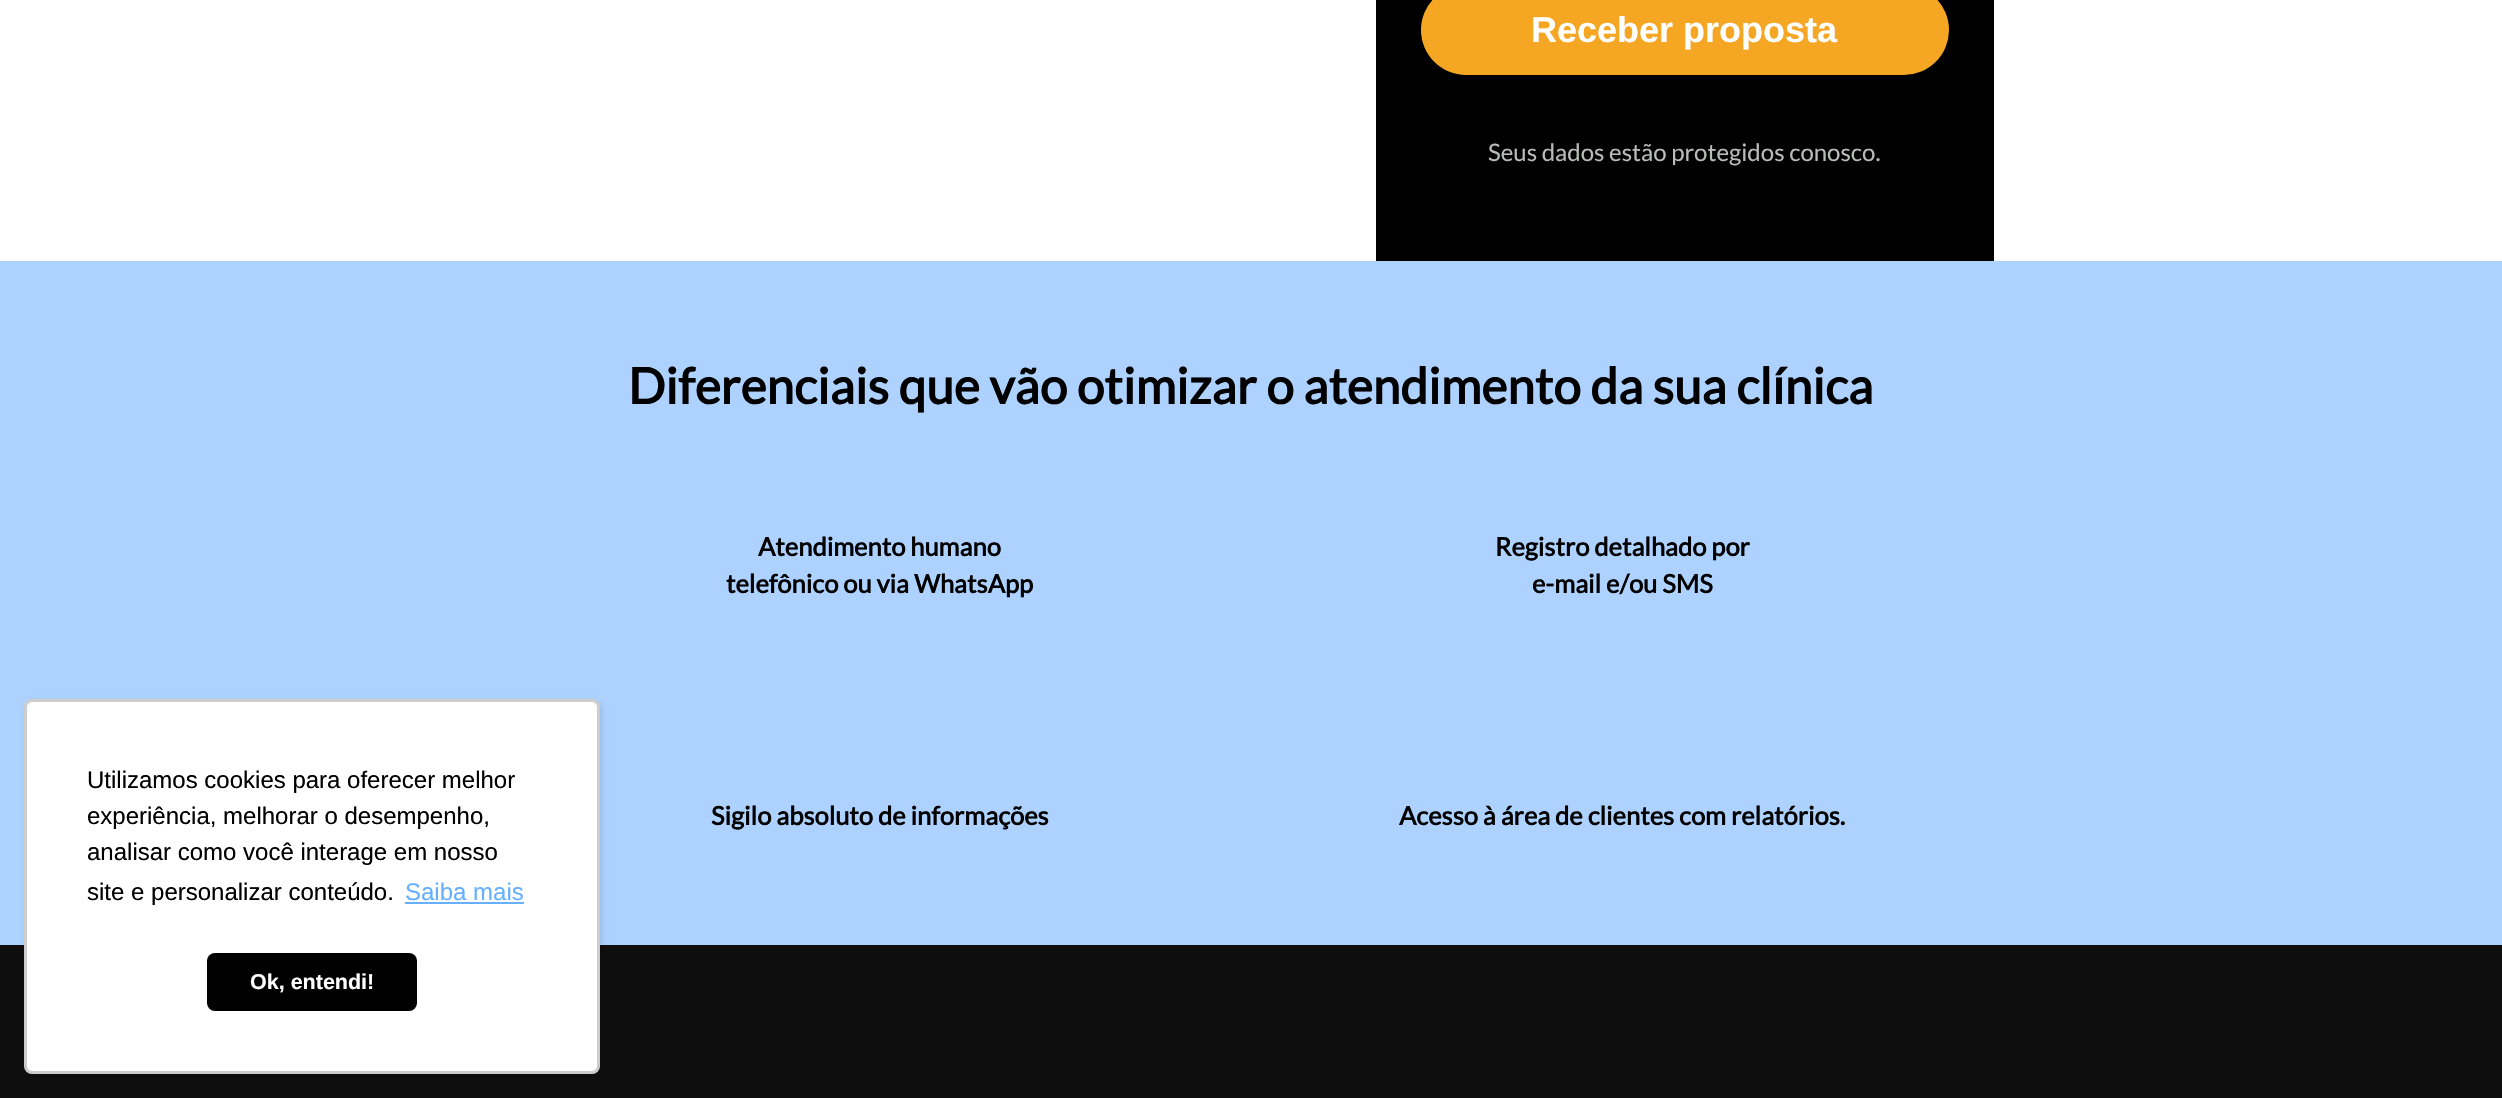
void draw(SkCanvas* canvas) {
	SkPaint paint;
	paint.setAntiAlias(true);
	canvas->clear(0xffffffff);
	paint.setColor(0xff000000);
	canvas->drawRect(SkRect::MakeXYWH(1376, 0, 618, 261), paint);
	paint.setColor(0xfff5a623);
	canvas->drawRoundRect(SkRect::MakeXYWH(1421, -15, 528, 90), 45, 45, paint);
	SkFont f1(fontMgr->matchFamilyStyle("Liberation Sans", SkFontStyle::Bold()), 36);
	f1.setSubpixel(true);
	paint.setColor(0xffffffff);
	canvas->drawString("Receber proposta", 1531, 42, f1, paint);
	SkFont f2(fontMgr->matchFamilyStyle("Lato", SkFontStyle::Normal()), 24);
	f2.setSubpixel(true);
	paint.setColor(0xffb8bdba);
	canvas->drawString("Seus dados estão protegidos conosco.", 1488, 161, f2, paint);
	paint.setColor(0xffadd2ff);
	canvas->drawRect(SkRect::MakeXYWH(0, 261, 2502, 684), paint);
	SkFont f3(fontMgr->matchFamilyStyle("Lato", SkFontStyle::Bold()), 49.5);
	f3.setSubpixel(true);
	paint.setColor(0xff000000);
	canvas->drawString("Diferenciais que vão otimizar o atendimento da sua clínica", 628, 404, f3, paint);
	SkFont f4(fontMgr->matchFamilyStyle("Lato", SkFontStyle::Bold()), 25.5);
	f4.setSubpixel(true);
	canvas->drawString("Atendimento humano", 758, 556, f4, paint);
	canvas->drawString("telefônico ou via WhatsApp", 726, 593, f4, paint);
	canvas->drawString("Registro detalhado por", 1495, 556, f4, paint);
	canvas->drawString("e-mail e/ou SMS", 1532, 593, f4, paint);
	canvas->drawString("Sigilo absoluto de informações", 711, 825, f4, paint);
	canvas->drawString("Acesso à área de clientes com relatórios.", 1399, 825, f4, paint);
	paint.setColor(0xff0e0e0e);
	canvas->drawRect(SkRect::MakeXYWH(0, 945, 2502, 153), paint);
	paint.setColor(0x1a000000);
	paint.setMaskFilter(SkMaskFilter::MakeBlur(kNormal_SkBlurStyle, 3));
	canvas->drawRoundRect(SkRect::MakeXYWH(26, 702, 576, 375), 8, 8, paint);
	paint.setMaskFilter(nullptr);
	paint.setColor(0xffffffff);
	canvas->drawRoundRect(SkRect::MakeXYWH(24, 699, 576, 375), 8, 8, paint);
	paint.setStroke(true);
	paint.setStrokeWidth(3);
	paint.setColor(0x33000000);
	canvas->drawRoundRect(SkRect::MakeXYWH(25.5, 700.5, 573, 372), 6.5, 6.5, paint);
	SkFont f5(fontMgr->matchFamilyStyle("Liberation Sans", SkFontStyle::Normal()), 24);
	f5.setSubpixel(true);
	paint.setStroke(false);
	paint.setColor(0xff000000);
	canvas->drawString("Utilizamos cookies para oferecer melhor", 87, 788, f5, paint);
	canvas->drawString("experiência, melhorar o desempenho,", 87, 824, f5, paint);
	canvas->drawString("analisar como você interage em nosso", 87, 860, f5, paint);
	canvas->drawString("site e personalizar conteúdo.", 87, 900, f5, paint);
	paint.setColor(0xff66b0ff);
	canvas->drawString("Saiba mais", 405, 900, f5, paint);
	canvas->drawRect(SkRect::MakeXYWH(405, 902, 119, 2), paint);
	paint.setColor(0xff000000);
	canvas->drawRoundRect(SkRect::MakeXYWH(207, 953, 210, 58), 8, 8, paint);
	SkFont f6(fontMgr->matchFamilyStyle("Liberation Sans", SkFontStyle::Bold()), 21.5);
	f6.setSubpixel(true);
	paint.setColor(0xffffffff);
	canvas->drawString("Ok, entendi!", 250, 989, f6, paint);
}
